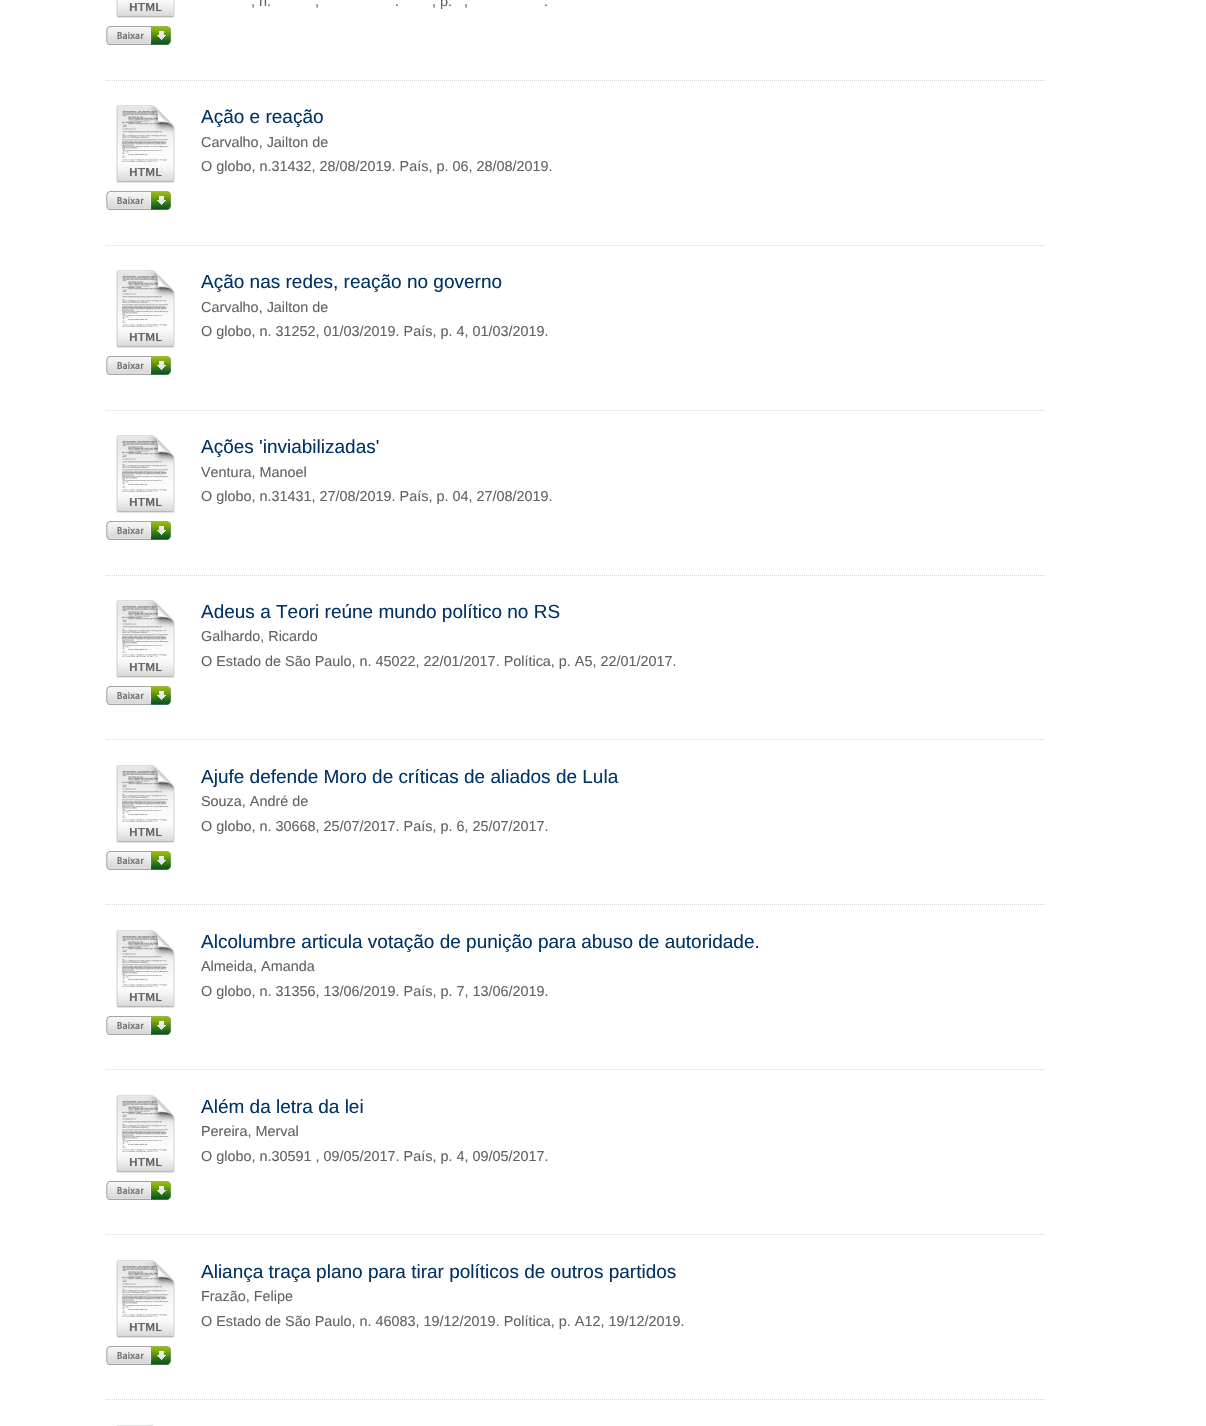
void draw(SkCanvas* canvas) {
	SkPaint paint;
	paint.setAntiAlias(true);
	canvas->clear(0xffffffff);
	canvas->drawImageRect(SkImages::DeferredFromEncodedData(SkData::MakeFromFileName("img1.png")), SkRect::MakeXYWH(116, 0, 59, 18), SkSamplingOptions());
	canvas->drawImageRect(SkImages::DeferredFromEncodedData(SkData::MakeFromFileName("img2.png")), SkRect::MakeXYWH(106, 26, 65, 19), SkSamplingOptions());
	SkFont f1(fontMgr->matchFamilyStyle("Liberation Sans", SkFontStyle::Normal()), 14.4);
	f1.setSubpixel(true);
	paint.setColor(0xff626262);
	canvas->drawString(", n.", 251, 6, f1, paint);
	canvas->drawString(",", 315, 6, f1, paint);
	canvas->drawString(".", 395, 6, f1, paint);
	canvas->drawString(", p.", 432, 6, f1, paint);
	canvas->drawString(",", 464, 6, f1, paint);
	canvas->drawString(".", 544, 6, f1, paint);
	canvas->drawImageRect(SkImages::DeferredFromEncodedData(SkData::MakeFromFileName("img3.png")), SkRect::MakeXYWH(106, 80, 939, 1), SkSamplingOptions());
	canvas->drawImageRect(SkImages::DeferredFromEncodedData(SkData::MakeFromFileName("img4.png")), SkRect::MakeXYWH(116, 105, 59, 78), SkSamplingOptions());
	canvas->drawImageRect(SkImages::DeferredFromEncodedData(SkData::MakeFromFileName("img2.png")), SkRect::MakeXYWH(106, 191, 65, 19), SkSamplingOptions());
	SkFont f2(fontMgr->matchFamilyStyle("Liberation Sans", SkFontStyle::Normal()), 19);
	f2.setSubpixel(true);
	paint.setColor(0xff003366);
	canvas->drawString("Ação e reação", 201, 123, f2, paint);
	paint.setColor(0xff626262);
	canvas->drawString("Carvalho, Jailton de", 201, 147, f1, paint);
	canvas->drawString("O globo, n.31432, 28/08/2019. País, p. 06, 28/08/2019.", 201, 171, f1, paint);
	canvas->drawImageRect(SkImages::DeferredFromEncodedData(SkData::MakeFromFileName("img3.png")), SkRect::MakeXYWH(106, 245, 939, 1), SkSamplingOptions());
	canvas->drawImageRect(SkImages::DeferredFromEncodedData(SkData::MakeFromFileName("img4.png")), SkRect::MakeXYWH(116, 270, 59, 78), SkSamplingOptions());
	canvas->drawImageRect(SkImages::DeferredFromEncodedData(SkData::MakeFromFileName("img2.png")), SkRect::MakeXYWH(106, 356, 65, 19), SkSamplingOptions());
	paint.setColor(0xff003366);
	canvas->drawString("Ação nas redes, reação no governo", 201, 288, f2, paint);
	paint.setColor(0xff626262);
	canvas->drawString("Carvalho, Jailton de", 201, 312, f1, paint);
	canvas->drawString("O globo, n. 31252, 01/03/2019. País, p. 4, 01/03/2019.", 201, 336, f1, paint);
	canvas->drawImageRect(SkImages::DeferredFromEncodedData(SkData::MakeFromFileName("img3.png")), SkRect::MakeXYWH(106, 410, 939, 1), SkSamplingOptions());
	canvas->drawImageRect(SkImages::DeferredFromEncodedData(SkData::MakeFromFileName("img4.png")), SkRect::MakeXYWH(116, 435, 59, 78), SkSamplingOptions());
	canvas->drawImageRect(SkImages::DeferredFromEncodedData(SkData::MakeFromFileName("img2.png")), SkRect::MakeXYWH(106, 521, 65, 19), SkSamplingOptions());
	paint.setColor(0xff003366);
	canvas->drawString("Ações 'inviabilizadas'", 201, 453, f2, paint);
	paint.setColor(0xff626262);
	canvas->drawString("Ventura, Manoel", 201, 477, f1, paint);
	canvas->drawString("O globo, n.31431, 27/08/2019. País, p. 04, 27/08/2019.", 201, 501, f1, paint);
	canvas->drawImageRect(SkImages::DeferredFromEncodedData(SkData::MakeFromFileName("img3.png")), SkRect::MakeXYWH(106, 575, 939, 1), SkSamplingOptions());
	canvas->drawImageRect(SkImages::DeferredFromEncodedData(SkData::MakeFromFileName("img4.png")), SkRect::MakeXYWH(116, 600, 59, 78), SkSamplingOptions());
	canvas->drawImageRect(SkImages::DeferredFromEncodedData(SkData::MakeFromFileName("img2.png")), SkRect::MakeXYWH(106, 686, 65, 19), SkSamplingOptions());
	paint.setColor(0xff003366);
	canvas->drawString("Adeus a Teori reúne mundo político no RS", 201, 618, f2, paint);
	paint.setColor(0xff626262);
	canvas->drawString("Galhardo, Ricardo", 201, 641, f1, paint);
	canvas->drawString("O Estado de São Paulo, n. 45022, 22/01/2017. Política, p. A5, 22/01/2017.", 201, 666, f1, paint);
	canvas->drawImageRect(SkImages::DeferredFromEncodedData(SkData::MakeFromFileName("img3.png")), SkRect::MakeXYWH(106, 739, 939, 1), SkSamplingOptions());
	canvas->drawImageRect(SkImages::DeferredFromEncodedData(SkData::MakeFromFileName("img4.png")), SkRect::MakeXYWH(116, 765, 59, 78), SkSamplingOptions());
	canvas->drawImageRect(SkImages::DeferredFromEncodedData(SkData::MakeFromFileName("img2.png")), SkRect::MakeXYWH(106, 851, 65, 19), SkSamplingOptions());
	paint.setColor(0xff003366);
	canvas->drawString("Ajufe defende Moro de críticas de aliados de Lula", 201, 783, f2, paint);
	paint.setColor(0xff626262);
	canvas->drawString("Souza, André de", 201, 806, f1, paint);
	canvas->drawString("O globo, n. 30668, 25/07/2017. País, p. 6, 25/07/2017.", 201, 831, f1, paint);
	canvas->drawImageRect(SkImages::DeferredFromEncodedData(SkData::MakeFromFileName("img3.png")), SkRect::MakeXYWH(106, 904, 939, 1), SkSamplingOptions());
	canvas->drawImageRect(SkImages::DeferredFromEncodedData(SkData::MakeFromFileName("img5.png")), SkRect::MakeXYWH(116, 930, 59, 78), SkSamplingOptions());
	canvas->drawImageRect(SkImages::DeferredFromEncodedData(SkData::MakeFromFileName("img2.png")), SkRect::MakeXYWH(106, 1016, 65, 19), SkSamplingOptions());
	paint.setColor(0xff003366);
	canvas->drawString("Alcolumbre articula votação de punição para abuso de autoridade.", 201, 948, f2, paint);
	paint.setColor(0xff626262);
	canvas->drawString("Almeida, Amanda", 201, 971, f1, paint);
	canvas->drawString("O globo, n. 31356, 13/06/2019. País, p. 7, 13/06/2019.", 201, 996, f1, paint);
	canvas->drawImageRect(SkImages::DeferredFromEncodedData(SkData::MakeFromFileName("img3.png")), SkRect::MakeXYWH(106, 1069, 939, 1), SkSamplingOptions());
	canvas->drawImageRect(SkImages::DeferredFromEncodedData(SkData::MakeFromFileName("img4.png")), SkRect::MakeXYWH(116, 1095, 59, 78), SkSamplingOptions());
	canvas->drawImageRect(SkImages::DeferredFromEncodedData(SkData::MakeFromFileName("img2.png")), SkRect::MakeXYWH(106, 1181, 65, 19), SkSamplingOptions());
	paint.setColor(0xff003366);
	canvas->drawString("Além da letra da lei", 201, 1113, f2, paint);
	paint.setColor(0xff626262);
	canvas->drawString("Pereira, Merval", 201, 1136, f1, paint);
	canvas->drawString("O globo, n.30591 , 09/05/2017. País, p. 4, 09/05/2017.", 201, 1161, f1, paint);
	canvas->drawImageRect(SkImages::DeferredFromEncodedData(SkData::MakeFromFileName("img3.png")), SkRect::MakeXYWH(106, 1234, 939, 1), SkSamplingOptions());
	canvas->drawImageRect(SkImages::DeferredFromEncodedData(SkData::MakeFromFileName("img4.png")), SkRect::MakeXYWH(116, 1260, 59, 78), SkSamplingOptions());
	canvas->drawImageRect(SkImages::DeferredFromEncodedData(SkData::MakeFromFileName("img2.png")), SkRect::MakeXYWH(106, 1346, 65, 19), SkSamplingOptions());
	paint.setColor(0xff003366);
	canvas->drawString("Aliança traça plano para tirar políticos de outros partidos", 201, 1278, f2, paint);
	paint.setColor(0xff626262);
	canvas->drawString("Frazão, Felipe", 201, 1301, f1, paint);
	canvas->drawString("O Estado de São Paulo, n. 46083, 19/12/2019. Política, p. A12, 19/12/2019.", 201, 1326, f1, paint);
	canvas->drawImageRect(SkImages::DeferredFromEncodedData(SkData::MakeFromFileName("img3.png")), SkRect::MakeXYWH(106, 1399, 939, 1), SkSamplingOptions());
	canvas->drawImageRect(SkImages::DeferredFromEncodedData(SkData::MakeFromFileName("img6.png")), SkRect::MakeXYWH(117, 1425, 37, 1), SkSamplingOptions());
}
